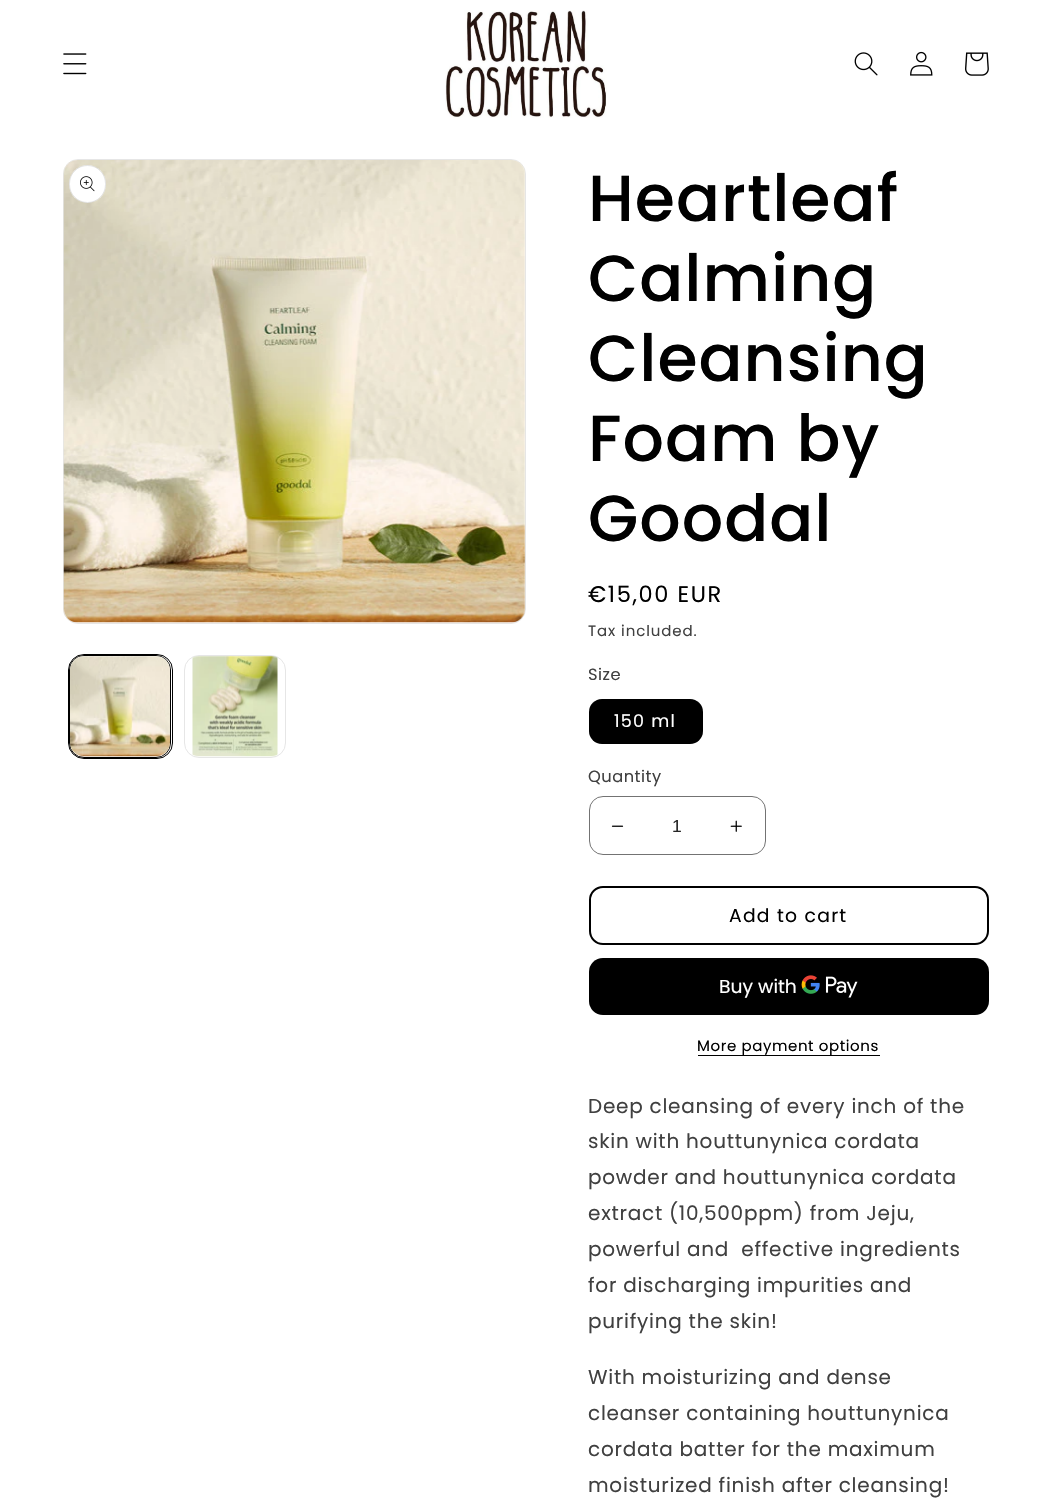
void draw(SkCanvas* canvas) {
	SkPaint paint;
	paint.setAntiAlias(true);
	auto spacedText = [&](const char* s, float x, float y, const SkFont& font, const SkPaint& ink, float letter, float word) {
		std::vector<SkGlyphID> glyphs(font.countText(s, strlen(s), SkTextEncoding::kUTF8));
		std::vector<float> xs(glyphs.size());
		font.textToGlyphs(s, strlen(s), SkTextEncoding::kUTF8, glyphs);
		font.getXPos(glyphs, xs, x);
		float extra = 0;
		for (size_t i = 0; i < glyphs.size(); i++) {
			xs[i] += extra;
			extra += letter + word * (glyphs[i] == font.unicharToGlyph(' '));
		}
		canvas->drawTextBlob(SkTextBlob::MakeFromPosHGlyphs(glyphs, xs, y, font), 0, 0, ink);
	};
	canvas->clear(0xffffffff);
	canvas->drawImageRect(SkImages::DeferredFromEncodedData(SkData::MakeFromFileName("img1.png")), SkRect::MakeXYWH(63, 53, 24, 22), SkSamplingOptions());
	canvas->drawImageRect(SkImages::DeferredFromEncodedData(SkData::MakeFromFileName("img2.png")), SkRect::MakeXYWH(445, 10, 162, 108), SkSamplingOptions());
	canvas->drawImageRect(SkImages::DeferredFromEncodedData(SkData::MakeFromFileName("img3.png")), SkRect::MakeXYWH(854, 52, 24, 24), SkSamplingOptions());
	canvas->drawImageRect(SkImages::DeferredFromEncodedData(SkData::MakeFromFileName("img4.png")), SkRect::MakeXYWH(910, 51, 23, 25), SkSamplingOptions());
	canvas->drawImageRect(SkImages::DeferredFromEncodedData(SkData::MakeFromFileName("img5.png")), SkRect::MakeXYWH(965, 52, 24, 24), SkSamplingOptions());
	paint.setStroke(true);
	paint.setStrokeWidth(1);
	paint.setColor(0xffe6e6e6);
	canvas->drawRoundRect(SkRect::MakeXYWH(63.5, 159.5, 462, 464), 14.5, 14.5, paint);
	canvas->drawImageRect(SkImages::DeferredFromEncodedData(SkData::MakeFromFileName("img6.png")), SkRect::MakeXYWH(63, 160, 463, 463), SkSamplingOptions());
	paint.setStroke(false);
	paint.setColor(0xffffffff);
	canvas->drawRoundRect(SkRect::MakeXYWH(69, 165, 37, 38), 18.5, 18.5, paint);
	paint.setStroke(true);
	paint.setColor(0x1a000000);
	canvas->drawRoundRect(SkRect::MakeXYWH(69.5, 165.5, 36, 37), 18, 18, paint);
	canvas->drawImageRect(SkImages::DeferredFromEncodedData(SkData::MakeFromFileName("img7.png")), SkRect::MakeXYWH(80, 176, 15, 16), SkSamplingOptions());
	paint.setColor(0xff000000);
	canvas->drawRoundRect(SkRect::MakeXYWH(68.5, 654.5, 104, 104), 15.5, 15.5, paint);
	canvas->drawRoundRect(SkRect::MakeXYWH(69.5, 655.5, 101, 102), 14.5, 14.5, paint);
	canvas->drawImageRect(SkImages::DeferredFromEncodedData(SkData::MakeFromFileName("img8.png")), SkRect::MakeXYWH(70, 656, 100, 101), SkSamplingOptions());
	paint.setColor(0xffe6e6e6);
	canvas->drawRoundRect(SkRect::MakeXYWH(184.5, 655.5, 101, 102), 14.5, 14.5, paint);
	canvas->drawImageRect(SkImages::DeferredFromEncodedData(SkData::MakeFromFileName("img9.png")), SkRect::MakeXYWH(192, 656, 86, 101), SkSamplingOptions());
	SkFont f1(fontMgr->matchFamilyStyle("Poppins", SkFontStyle(500, SkFontStyle::kNormal_Width, SkFontStyle::kUpright_Slant)), 65);
	f1.setSubpixel(true);
	paint.setStroke(false);
	paint.setColor(0xff000000);
	spacedText("Heartleaf", 588, 221, f1, paint, 1, 0);
	spacedText("Calming", 588, 301, f1, paint, 1, 0);
	spacedText("Cleansing", 588, 381, f1, paint, 1, 0);
	spacedText("Foam by", 588, 461, f1, paint, 1, 0);
	spacedText("Goodal", 588, 541, f1, paint, 1, 0);
	SkFont f2(fontMgr->matchFamilyStyle("Poppins", SkFontStyle::Normal()), 22.5);
	f2.setSubpixel(true);
	spacedText("€15,00 EUR", 588, 602, f2, paint, 1.6, 0);
	SkFont f3(fontMgr->matchFamilyStyle("Poppins", SkFontStyle::Normal()), 15);
	f3.setSubpixel(true);
	paint.setColor(0xff404040);
	spacedText("Tax included.", 588, 636, f3, paint, 0.9, 0);
	SkFont f4(fontMgr->matchFamilyStyle("Poppins", SkFontStyle::Normal()), 16.25);
	f4.setSubpixel(true);
	spacedText("Size", 588, 680, f4, paint, 0.5, 0);
	paint.setColor(0xff000000);
	canvas->drawRoundRect(SkRect::MakeXYWH(589, 699, 114, 45), 13, 13, paint);
	paint.setStroke(true);
	paint.setColor(0x1a000000);
	canvas->drawRoundRect(SkRect::MakeXYWH(589.5, 699.5, 113, 44), 12.5, 12.5, paint);
	SkFont f5(fontMgr->matchFamilyStyle("Poppins", SkFontStyle::Normal()), 17.5);
	f5.setSubpixel(true);
	paint.setStroke(false);
	paint.setColor(0xffffffff);
	spacedText("150 ml", 614, 727, f5, paint, 1.25, 0);
	paint.setColor(0xff404040);
	spacedText("Quantity", 588, 782, f4, paint, 0.5, 0);
	canvas->drawImageRect(SkImages::DeferredFromEncodedData(SkData::MakeFromFileName("img10.png")), SkRect::MakeXYWH(611, 825, 13, 2), SkSamplingOptions());
	canvas->drawImageRect(SkImages::DeferredFromEncodedData(SkData::MakeFromFileName("img11.png")), SkRect::MakeXYWH(730, 820, 12, 12), SkSamplingOptions());
	paint.setStroke(true);
	paint.setColor(0xff737373);
	canvas->drawRoundRect(SkRect::MakeXYWH(589.5, 796.5, 176, 58), 13.5, 13.5, paint);
	SkFont f6(fontMgr->matchFamilyStyle("Liberation Sans", SkFontStyle::Normal()), 17.5);
	f6.setSubpixel(true);
	paint.setStroke(false);
	paint.setColor(0xff262626);
	canvas->drawString("1", 672, 832, f6, paint);
	paint.setStroke(true);
	paint.setStrokeWidth(2);
	paint.setColor(0xff000000);
	canvas->drawRoundRect(SkRect::MakeXYWH(590, 887, 398, 57), 13, 13, paint);
	SkFont f7(fontMgr->matchFamilyStyle("Poppins", SkFontStyle::Normal()), 18.75);
	f7.setSubpixel(true);
	paint.setStroke(false);
	spacedText("Add to cart", 729, 922, f7, paint, 1.25, 0);
	canvas->drawRoundRect(SkRect::MakeXYWH(589, 958, 400, 57), 14, 14, paint);
	paint.setColor(0xffffffff);
	canvas->drawString("Buy with", 719, 993, f7, paint);
	canvas->drawImageRect(SkImages::DeferredFromEncodedData(SkData::MakeFromFileName("img12.png")), SkRect::MakeXYWH(801, 975, 57, 23), SkSamplingOptions());
	paint.setColor(0xff000000);
	spacedText("More payment options", 697, 1051, f3, paint, 0.6, 0);
	canvas->drawRect(SkRect::MakeXYWH(698, 1055, 182, 1), paint);
	SkFont f8(fontMgr->matchFamilyStyle("Poppins", SkFontStyle::Normal()), 20);
	f8.setSubpixel(true);
	paint.setColor(0xff404040);
	spacedText("Deep cleansing of every inch of the", 588, 1113, f8, paint, 0.75, 0);
	spacedText("skin with houttunynica cordata", 588, 1148, f8, paint, 0.75, 0);
	spacedText("powder and houttunynica cordata", 588, 1184, f8, paint, 0.75, 0);
	spacedText("extract (10,500ppm) from Jeju,", 588, 1220, f8, paint, 0.75, 0);
	spacedText("powerful and  effective ingredients", 588, 1256, f8, paint, 0.75, 0);
	spacedText("for discharging impurities and", 588, 1292, f8, paint, 0.75, 0);
	spacedText("purifying the skin!", 588, 1328, f8, paint, 0.75, 0);
	spacedText("With moisturizing and dense", 588, 1384, f8, paint, 0.75, 0);
	spacedText("cleanser containing houttunynica", 588, 1420, f8, paint, 0.75, 0);
	spacedText("cordata batter for the maximum", 588, 1456, f8, paint, 0.75, 0);
	spacedText("moisturized finish after cleansing!", 588, 1492, f8, paint, 0.75, 0);
}
